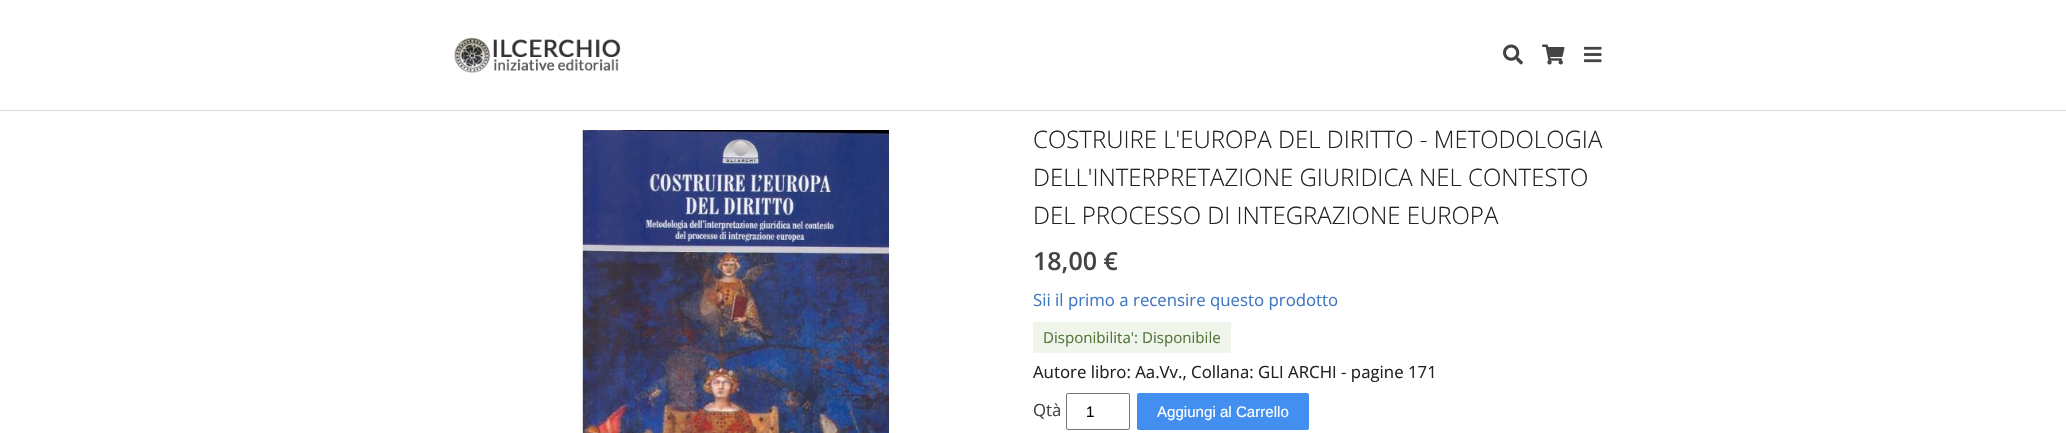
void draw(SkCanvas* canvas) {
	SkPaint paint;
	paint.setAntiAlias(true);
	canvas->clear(0xffffffff);
	canvas->save();
	canvas->clipRect(SkRect::MakeXYWH(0, 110, 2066, 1));
	paint.setColor(0x26000000);
	paint.setMaskFilter(SkMaskFilter::MakeBlur(kNormal_SkBlurStyle, 0.5));
	canvas->drawRect(SkRect::MakeXYWH(0, 1, 2066, 110), paint);
	paint.setMaskFilter(nullptr);
	canvas->restore();
	canvas->drawImageRect(SkImages::DeferredFromEncodedData(SkData::MakeFromFileName("img1.png")), SkRect::MakeXYWH(454, 37, 167, 36), SkSamplingOptions());
	canvas->drawImageRect(SkImages::DeferredFromEncodedData(SkData::MakeFromFileName("img2.png")), SkRect::MakeXYWH(1503, 44, 20, 21), SkSamplingOptions());
	canvas->drawImageRect(SkImages::DeferredFromEncodedData(SkData::MakeFromFileName("img3.png")), SkRect::MakeXYWH(1542, 44, 23, 21), SkSamplingOptions());
	canvas->drawImageRect(SkImages::DeferredFromEncodedData(SkData::MakeFromFileName("img4.png")), SkRect::MakeXYWH(1584, 46, 18, 17), SkSamplingOptions());
	canvas->drawImageRect(SkImages::DeferredFromEncodedData(SkData::MakeFromFileName("img5.png")), SkRect::MakeXYWH(580, 130, 319, 303), SkSamplingOptions());
	SkFont f1(fontMgr->matchFamilyStyle("Open Sans", SkFontStyle(300, SkFontStyle::kNormal_Width, SkFontStyle::kUpright_Slant)), 24);
	f1.setSubpixel(true);
	paint.setColor(0xff222222);
	canvas->drawString("COSTRUIRE L'EUROPA DEL DIRITTO - METODOLOGIA", 1033, 148, f1, paint);
	canvas->drawString("DELL'INTERPRETAZIONE GIURIDICA NEL CONTESTO", 1033, 186, f1, paint);
	canvas->drawString("DEL PROCESSO DI INTEGRAZIONE EUROPA", 1033, 224, f1, paint);
	SkFont f2(fontMgr->matchFamilyStyle("Open Sans", SkFontStyle(600, SkFontStyle::kNormal_Width, SkFontStyle::kUpright_Slant)), 25);
	f2.setSubpixel(true);
	paint.setColor(0xff444444);
	canvas->drawString("18,00 €", 1033, 270, f2, paint);
	SkFont f3(fontMgr->matchFamilyStyle("Open Sans", SkFontStyle::Normal()), 16.8);
	f3.setSubpixel(true);
	paint.setColor(0xff4078c0);
	canvas->drawString("Sii il primo a recensire questo prodotto", 1033, 306, f3, paint);
	paint.setColor(0xffeff5ea);
	canvas->drawRoundRect(SkRect::MakeXYWH(1033, 322, 198, 31), 2, 2, paint);
	SkFont f4(fontMgr->matchFamilyStyle("Open Sans", SkFontStyle::Normal()), 15.1);
	f4.setSubpixel(true);
	paint.setColor(0xff547538);
	canvas->drawString("Disponibilita': Disponibile", 1043, 343, f4, paint);
	paint.setColor(0xff222222);
	canvas->drawString("Autore libro: Aa.Vv., Collana: GLI ARCHI - pagine 171", 1033, 378, f3, paint);
	paint.setColor(0xff444444);
	canvas->drawString("Qtà", 1033, 416, f3, paint);
	paint.setStroke(true);
	paint.setStrokeWidth(1);
	paint.setColor(0xff767676);
	canvas->drawRoundRect(SkRect::MakeXYWH(1066.5, 393.5, 63, 36), 1.5, 1.5, paint);
	SkFont f5(fontMgr->matchFamilyStyle("Liberation Sans", SkFontStyle::Normal()), 15.1);
	f5.setSubpixel(true);
	paint.setStroke(false);
	paint.setColor(0xff000000);
	canvas->drawString("1", 1086, 417, f5, paint);
	paint.setColor(0xff438ff0);
	canvas->drawRoundRect(SkRect::MakeXYWH(1137, 393, 172, 37), 2, 2, paint);
	paint.setColor(0xffffffff);
	canvas->drawString("Aggiungi al Carrello", 1157, 417, f5, paint);
}
